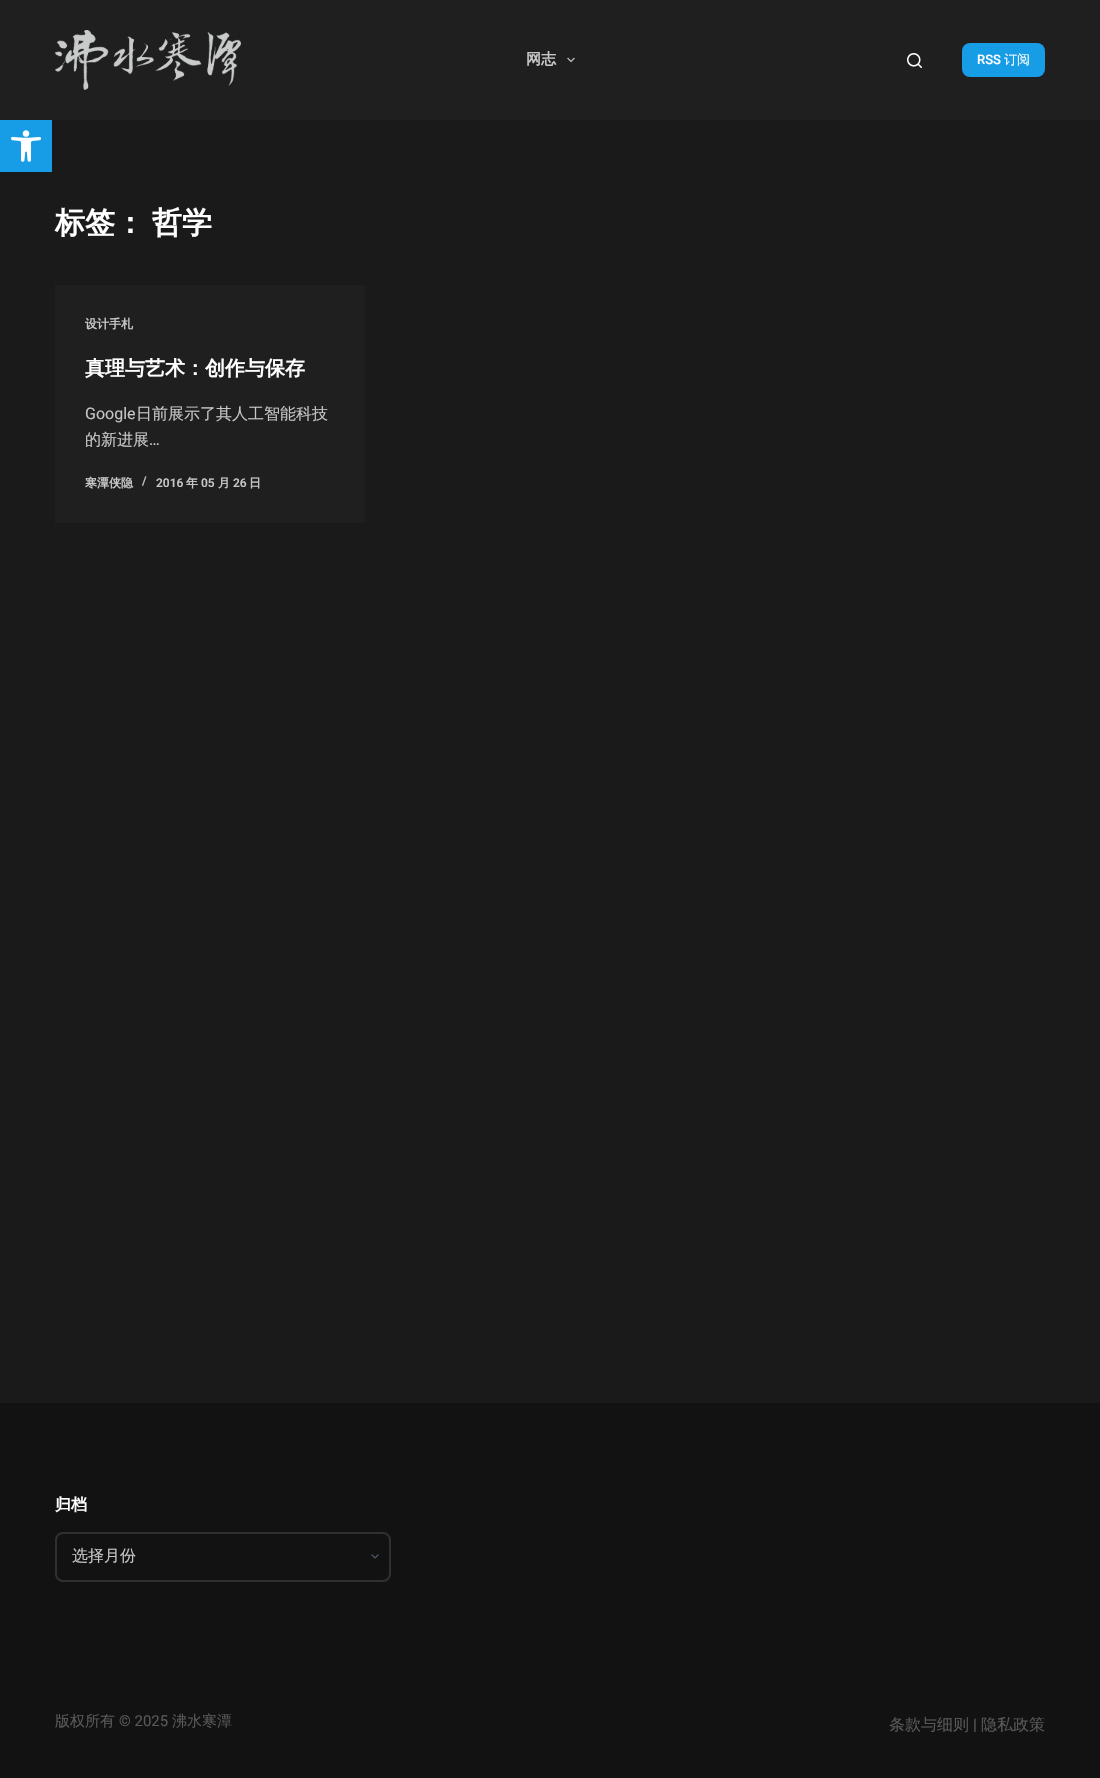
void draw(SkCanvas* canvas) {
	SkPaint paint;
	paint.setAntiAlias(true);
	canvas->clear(0xff1a1a1a);
	paint.setColor(0xff179ce6);
	canvas->drawRect(SkRect::MakeXYWH(0, 120, 52, 52), paint);
	canvas->drawImageRect(SkImages::DeferredFromEncodedData(SkData::MakeFromFileName("img1.png")), SkRect::MakeXYWH(11, 130, 30, 32), SkSamplingOptions());
	paint.setColor(0xff1f1f1f);
	canvas->drawRect(SkRect::MakeXYWH(0, 0, 1100, 120), paint);
	canvas->drawImageRect(SkImages::DeferredFromEncodedData(SkData::MakeFromFileName("img2.png")), SkRect::MakeXYWH(55, 30, 186, 60), SkSamplingOptions());
	SkFont f1(fontMgr->matchFamilyStyle("WenQuanYi Zen Hei", SkFontStyle::Bold()), 15);
	f1.setSubpixel(true);
	paint.setColor(0xffc6c6c6);
	canvas->drawString("网志", 526, 64, f1, paint);
	canvas->drawImageRect(SkImages::DeferredFromEncodedData(SkData::MakeFromFileName("img3.png")), SkRect::MakeXYWH(567, 57, 8, 6), SkSamplingOptions());
	canvas->drawImageRect(SkImages::DeferredFromEncodedData(SkData::MakeFromFileName("img4.png")), SkRect::MakeXYWH(907, 53, 15, 15), SkSamplingOptions());
	paint.setColor(0xff179ce6);
	canvas->drawRoundRect(SkRect::MakeXYWH(962, 43, 83, 34), 8, 8, paint);
	SkFont f2(fontMgr->matchFamilyStyle("Roboto", SkFontStyle(500, SkFontStyle::kNormal_Width, SkFontStyle::kUpright_Slant)), 13);
	f2.setSubpixel(true);
	paint.setColor(0xffffffff);
	canvas->drawString("RSS", 977, 64, f2, paint);
	SkFont f3(fontMgr->matchFamilyStyle("WenQuanYi Zen Hei", SkFontStyle(500, SkFontStyle::kNormal_Width, SkFontStyle::kUpright_Slant)), 13);
	f3.setSubpixel(true);
	canvas->drawString("订阅", 1004, 64, f3, paint);
	SkFont f4(fontMgr->matchFamilyStyle("WenQuanYi Zen Hei", SkFontStyle::Bold()), 30);
	f4.setSubpixel(true);
	canvas->drawString("标签：", 55, 233, f4, paint);
	canvas->drawString("哲学", 152, 233, f4, paint);
	paint.setColor(0xff1f1f1f);
	canvas->drawRect(SkRect::MakeXYWH(55, 285, 310, 238), paint);
	SkFont f5(fontMgr->matchFamilyStyle("WenQuanYi Zen Hei", SkFontStyle::Bold()), 12);
	f5.setSubpixel(true);
	paint.setColor(0xffc6c6c6);
	canvas->drawString("设计手札", 85, 328, f5, paint);
	SkFont f6(fontMgr->matchFamilyStyle("WenQuanYi Zen Hei", SkFontStyle::Bold()), 20);
	f6.setSubpixel(true);
	paint.setColor(0xffffffff);
	canvas->drawString("真理与艺术：创作与保存", 85, 375, f6, paint);
	SkFont f7(fontMgr->matchFamilyStyle("Roboto", SkFontStyle::Normal()), 16);
	f7.setSubpixel(true);
	paint.setColor(0xffc6c6c6);
	canvas->drawString("Google", 85, 419, f7, paint);
	SkFont f8(fontMgr->matchFamilyStyle("WenQuanYi Zen Hei", SkFontStyle(500, SkFontStyle::kNormal_Width, SkFontStyle::kUpright_Slant)), 16);
	f8.setSubpixel(true);
	canvas->drawString("日前展示了其人工智能科技", 136, 419, f8, paint);
	canvas->drawString("的新进展", 85, 445, f8, paint);
	canvas->drawString("…", 149, 445, f7, paint);
	canvas->drawString("寒潭侠隐", 85, 487, f5, paint);
	SkFont f9(fontMgr->matchFamilyStyle("Roboto", SkFontStyle(600, SkFontStyle::kNormal_Width, SkFontStyle::kUpright_Slant)), 12);
	f9.setSubpixel(true);
	canvas->drawString("/", 142, 485, f9, paint);
	canvas->drawString("2016", 156, 487, f9, paint);
	canvas->drawString("年", 186, 487, f5, paint);
	canvas->drawString("05", 201, 487, f9, paint);
	canvas->drawString("月", 218, 487, f5, paint);
	canvas->drawString("26", 233, 487, f9, paint);
	canvas->drawString("日", 249, 487, f5, paint);
	paint.setColor(0xff121212);
	canvas->drawRect(SkRect::MakeXYWH(0, 1403, 1100, 375), paint);
	SkFont f10(fontMgr->matchFamilyStyle("WenQuanYi Zen Hei", SkFontStyle::Bold()), 16);
	f10.setSubpixel(true);
	paint.setColor(0xffffffff);
	canvas->drawString("归档", 55, 1510, f10, paint);
	canvas->drawImageRect(SkImages::DeferredFromEncodedData(SkData::MakeFromFileName("img5.png")), SkRect::MakeXYWH(371, 1554, 8, 5), SkSamplingOptions());
	paint.setStroke(true);
	paint.setStrokeWidth(2);
	paint.setColor(0xff303030);
	canvas->drawRoundRect(SkRect::MakeXYWH(56, 1533, 334, 48), 7, 7, paint);
	paint.setStroke(false);
	paint.setColor(0xffc6c6c6);
	canvas->drawString("选择月份", 72, 1561, f8, paint);
	SkFont f11(fontMgr->matchFamilyStyle("WenQuanYi Zen Hei", SkFontStyle(500, SkFontStyle::kNormal_Width, SkFontStyle::kUpright_Slant)), 15);
	f11.setSubpixel(true);
	paint.setColor(0xff585858);
	canvas->drawString("版权所有", 55, 1726, f11, paint);
	SkFont f12(fontMgr->matchFamilyStyle("Roboto", SkFontStyle::Normal()), 15);
	f12.setSubpixel(true);
	canvas->drawString("© 2025", 119, 1726, f12, paint);
	canvas->drawString("沸水寒潭", 172, 1726, f11, paint);
	canvas->drawString("条款与细则", 889, 1730, f8, paint);
	canvas->drawString("|", 973, 1730, f7, paint);
	canvas->drawString("隐私政策", 981, 1730, f8, paint);
}
